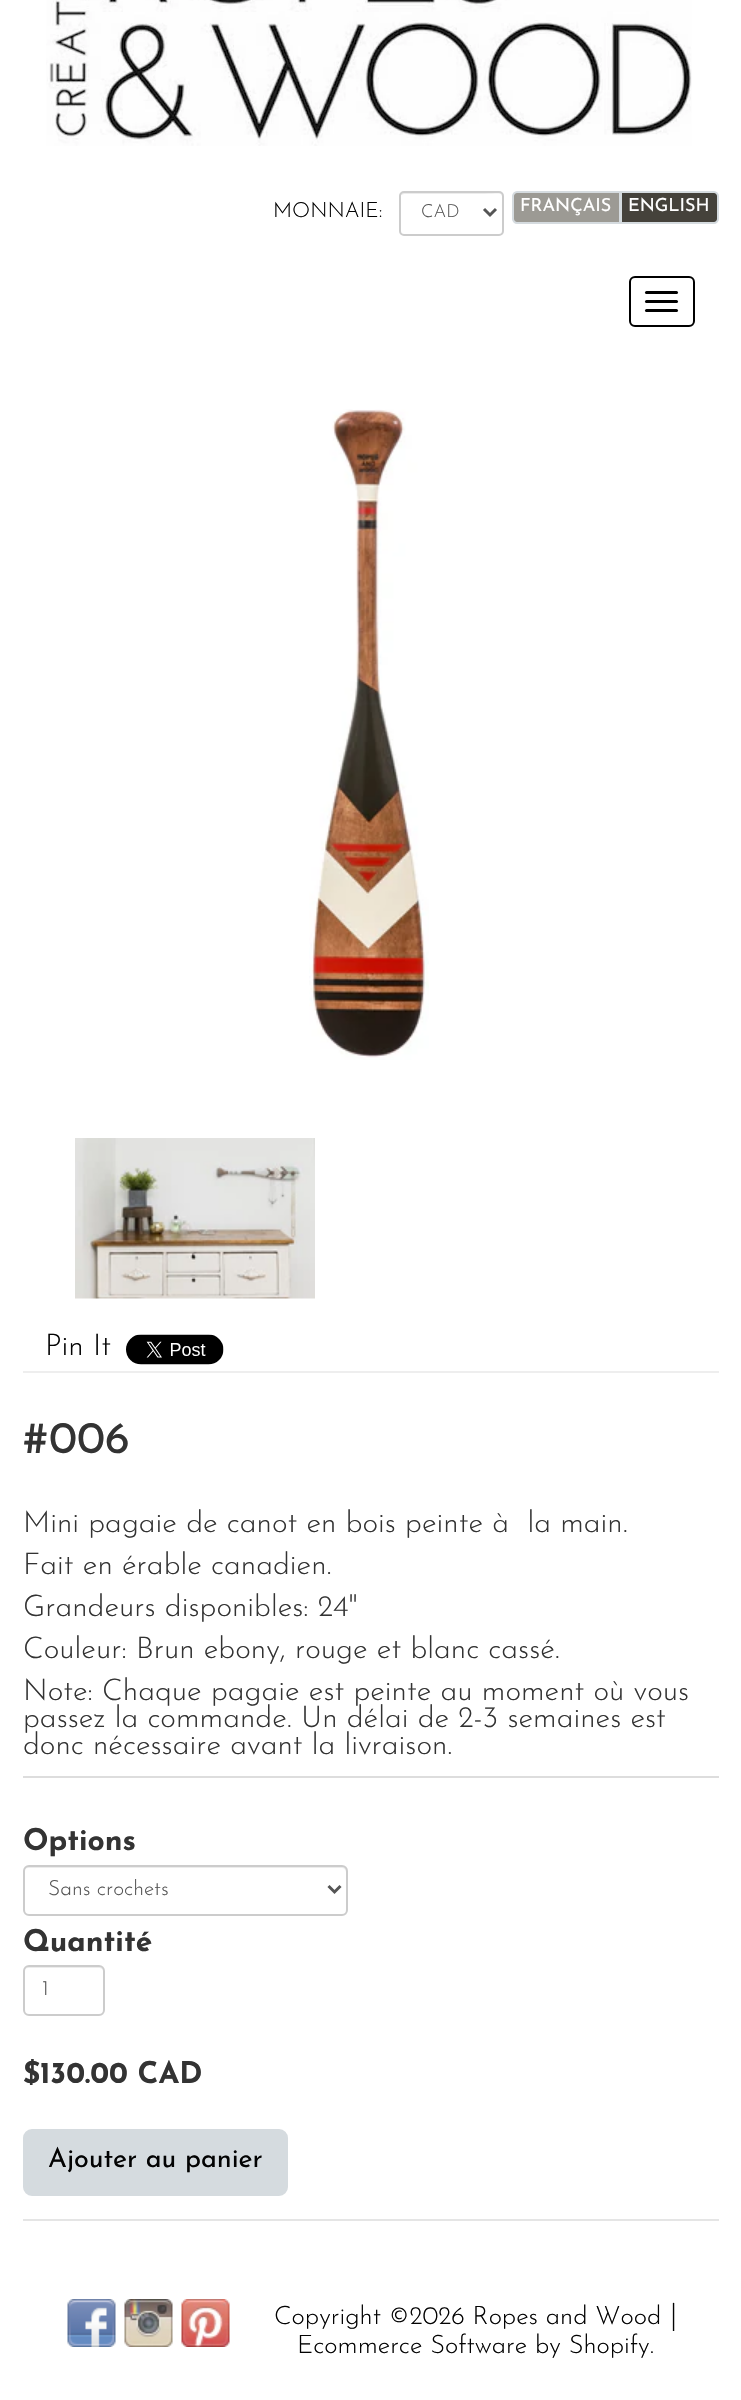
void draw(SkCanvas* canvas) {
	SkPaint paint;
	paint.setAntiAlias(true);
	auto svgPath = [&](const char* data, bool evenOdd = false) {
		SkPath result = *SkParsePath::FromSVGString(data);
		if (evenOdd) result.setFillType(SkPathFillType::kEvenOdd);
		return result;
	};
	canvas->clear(0xffffffff);
	canvas->drawImageRect(SkImages::DeferredFromEncodedData(SkData::MakeFromFileName("img1.png")), SkRect::MakeXYWH(46, 0, 646, 146), SkSamplingOptions());
	SkFont f1(fontMgr->matchFamilyStyle("Josefin Sans", SkFontStyle(300, SkFontStyle::kNormal_Width, SkFontStyle::kUpright_Slant)), 21);
	f1.setSubpixel(true);
	paint.setColor(0xff030303);
	canvas->drawString("MONNAIE:", 273, 217, f1, paint);
	paint.setColor(0xffececec);
	canvas->drawPath(svgPath("M404 194H484C505 194 502 190 502 208V233C503 233 503 232 503 231V195C503 193 502 192 500 192H404C402 192 401 193 401 195Z"), paint);
	paint.setStroke(true);
	paint.setStrokeWidth(2);
	paint.setColor(0xffcccccc);
	canvas->drawRoundRect(SkRect::MakeXYWH(400, 192, 103, 43), 4, 4, paint);
	paint.setStrokeWidth(3);
	paint.setColor(0xff555555);
	canvas->drawPath(svgPath("M484 209L490 215L496 209"), paint);
	SkFont f2(fontMgr->matchFamilyStyle("Josefin Sans", SkFontStyle(300, SkFontStyle::kNormal_Width, SkFontStyle::kUpright_Slant)), 18);
	f2.setSubpixel(true);
	paint.setStroke(false);
	canvas->drawString("CAD", 421, 217, f2, paint);
	paint.setColor(0xff9c9a94);
	canvas->drawPath(svgPath("M517 192H620V223H517C515 223 513 221 513 219V196C513 194 515 192 517 192Z"), paint);
	paint.setStroke(true);
	paint.setStrokeWidth(2);
	paint.setColor(0xffd5dbdf);
	canvas->drawPath(svgPath("M517 192H620V223H517C515 223 513 221 513 219V196C513 194 515 192 517 192Z"), paint);
	SkFont f3(fontMgr->matchFamilyStyle("Josefin Sans", SkFontStyle::Normal()), 18);
	f3.setSubpixel(true);
	paint.setStroke(false);
	paint.setColor(0xffffffff);
	canvas->drawString("FRANÇAIS", 520, 211, f3, paint);
	paint.setColor(0xff45423b);
	canvas->drawPath(svgPath("M621 192H714C716 192 718 194 718 196V219C718 221 716 223 714 223H621Z"), paint);
	paint.setStroke(true);
	paint.setColor(0xffd5dbdf);
	canvas->drawPath(svgPath("M621 192H714C716 192 718 194 718 196V219C718 221 716 223 714 223H621Z"), paint);
	paint.setStroke(false);
	paint.setColor(0xffffffff);
	canvas->drawString("ENGLISH", 628, 211, f3, paint);
	paint.setStroke(true);
	paint.setColor(0xff000000);
	canvas->drawRoundRect(SkRect::MakeXYWH(630, 277, 64, 49), 5, 5, paint);
	paint.setStroke(false);
	canvas->drawRoundRect(SkRect::MakeXYWH(645, 291, 33, 3), 1.5, 1.5, paint);
	canvas->drawRoundRect(SkRect::MakeXYWH(645, 300, 33, 3), 1.5, 1.5, paint);
	canvas->drawRoundRect(SkRect::MakeXYWH(645, 309, 33, 3), 1.5, 1.5, paint);
	canvas->drawImageRect(SkImages::DeferredFromEncodedData(SkData::MakeFromFileName("img2.png")), SkRect::MakeXYWH(309, 409, 120, 651), SkSamplingOptions());
	canvas->drawImageRect(SkImages::DeferredFromEncodedData(SkData::MakeFromFileName("img3.png")), SkRect::MakeXYWH(75, 1138, 240, 161), SkSamplingOptions());
	SkFont f4(fontMgr->matchFamilyStyle("Josefin Sans", SkFontStyle(300, SkFontStyle::kNormal_Width, SkFontStyle::kUpright_Slant)), 30);
	f4.setSubpixel(true);
	paint.setColor(0xff030303);
	canvas->drawString("Pin It", 45, 1355, f4, paint);
	canvas->drawImageRect(SkImages::DeferredFromEncodedData(SkData::MakeFromFileName("img4.png")), SkRect::MakeXYWH(126, 1334, 98, 31), SkSamplingOptions());
	paint.setColor(0xffeeeeee);
	canvas->drawRect(SkRect::MakeXYWH(23, 1371, 696, 2), paint);
	SkFont f5(fontMgr->matchFamilyStyle("Josefin Sans", SkFontStyle::Normal()), 45);
	f5.setSubpixel(true);
	paint.setColor(0xff333333);
	canvas->drawString("#006", 23, 1453, f5, paint);
	paint.setColor(0xffdddddd);
	canvas->drawRect(SkRect::MakeXYWH(23, 1776, 696, 2), paint);
	paint.setColor(0xff333333);
	canvas->drawString("Mini pagaie de canot en bois peinte à  la main.", 23, 1532, f4, paint);
	canvas->drawString("Fait en érable canadien.", 23, 1574, f4, paint);
	canvas->drawString("Grandeurs disponibles: 24\"", 23, 1616, f4, paint);
	canvas->drawString("Couleur: Brun ebony, rouge et blanc cassé.", 23, 1658, f4, paint);
	canvas->drawString("Note: Chaque pagaie est peinte au moment où vous", 23, 1700, f4, paint);
	canvas->drawString("passez la commande. Un délai de 2-3 semaines est", 23, 1727, f4, paint);
	canvas->drawString("donc nécessaire avant la livraison.", 23, 1754, f4, paint);
	SkFont f6(fontMgr->matchFamilyStyle("Josefin Sans", SkFontStyle::Bold()), 30);
	f6.setSubpixel(true);
	canvas->drawString("Options", 23, 1850, f6, paint);
	paint.setColor(0xffececec);
	canvas->drawPath(svgPath("M28 1868H342C344 1868 346 1870 346 1872V1912C347 1911 347 1910 347 1909V1871C347 1868 345 1866 342 1866H29C26 1866 24 1868 24 1871V1872C24 1870 26 1868 28 1868Z"), paint);
	paint.setStroke(true);
	paint.setColor(0xffcccccc);
	canvas->drawRoundRect(SkRect::MakeXYWH(24, 1866, 323, 49), 5, 5, paint);
	paint.setStrokeWidth(3);
	paint.setColor(0xff555555);
	canvas->drawPath(svgPath("M328.5 1886L334.5 1892L340.5 1886"), paint);
	paint.setStroke(false);
	canvas->drawString("Sans crochets", 48, 1895, f1, paint);
	paint.setColor(0xff333333);
	canvas->drawString("Quantité", 23, 1951, f6, paint);
	paint.setColor(0xffececec);
	canvas->drawPath(svgPath("M28 1968H99C101 1968 104 1970 104 1972C104 1969 102 1967 99 1967H29C26 1967 24 1969 24 1972C24 1970 26 1968 28 1968Z"), paint);
	paint.setStroke(true);
	paint.setStrokeWidth(2);
	paint.setColor(0xffcccccc);
	canvas->drawRoundRect(SkRect::MakeXYWH(24, 1966, 80, 49), 5, 5, paint);
	paint.setStroke(false);
	paint.setColor(0xff555555);
	canvas->drawString("1", 42, 1995, f1, paint);
	paint.setColor(0xff333333);
	canvas->drawString("$130.00 CAD", 23, 2083, f6, paint);
	paint.setColor(0xffd5dbdf);
	canvas->drawRoundRect(SkRect::MakeXYWH(24, 2130, 263, 65), 8, 8, paint);
	paint.setStroke(true);
	canvas->drawRoundRect(SkRect::MakeXYWH(24, 2130, 263, 65), 8, 8, paint);
	SkFont f7(fontMgr->matchFamilyStyle("Josefin Sans", SkFontStyle::Normal()), 27);
	f7.setSubpixel(true);
	paint.setStroke(false);
	paint.setColor(0xff030303);
	canvas->drawString("Ajouter au panier", 48, 2167, f7, paint);
	paint.setColor(0xffe5e5e5);
	canvas->drawRect(SkRect::MakeXYWH(23, 2219, 696, 2), paint);
	canvas->drawImageRect(SkImages::DeferredFromEncodedData(SkData::MakeFromFileName("img5.png")), SkRect::MakeXYWH(67, 2299, 49, 48), SkSamplingOptions());
	canvas->drawImageRect(SkImages::DeferredFromEncodedData(SkData::MakeFromFileName("img6.png")), SkRect::MakeXYWH(124, 2299, 49, 48), SkSamplingOptions());
	canvas->drawImageRect(SkImages::DeferredFromEncodedData(SkData::MakeFromFileName("img7.png")), SkRect::MakeXYWH(181, 2299, 49, 48), SkSamplingOptions());
	SkFont f8(fontMgr->matchFamilyStyle("Josefin Sans", SkFontStyle(300, SkFontStyle::kNormal_Width, SkFontStyle::kUpright_Slant)), 25.5);
	f8.setSubpixel(true);
	paint.setColor(0xff030303);
	canvas->drawString("Copyright ©2026 Ropes and Wood", 274, 2324, f8, paint);
	canvas->drawString("|", 670, 2324, f4, paint);
	canvas->drawString("Ecommerce Software by Shopify.", 297, 2353, f8, paint);
}
